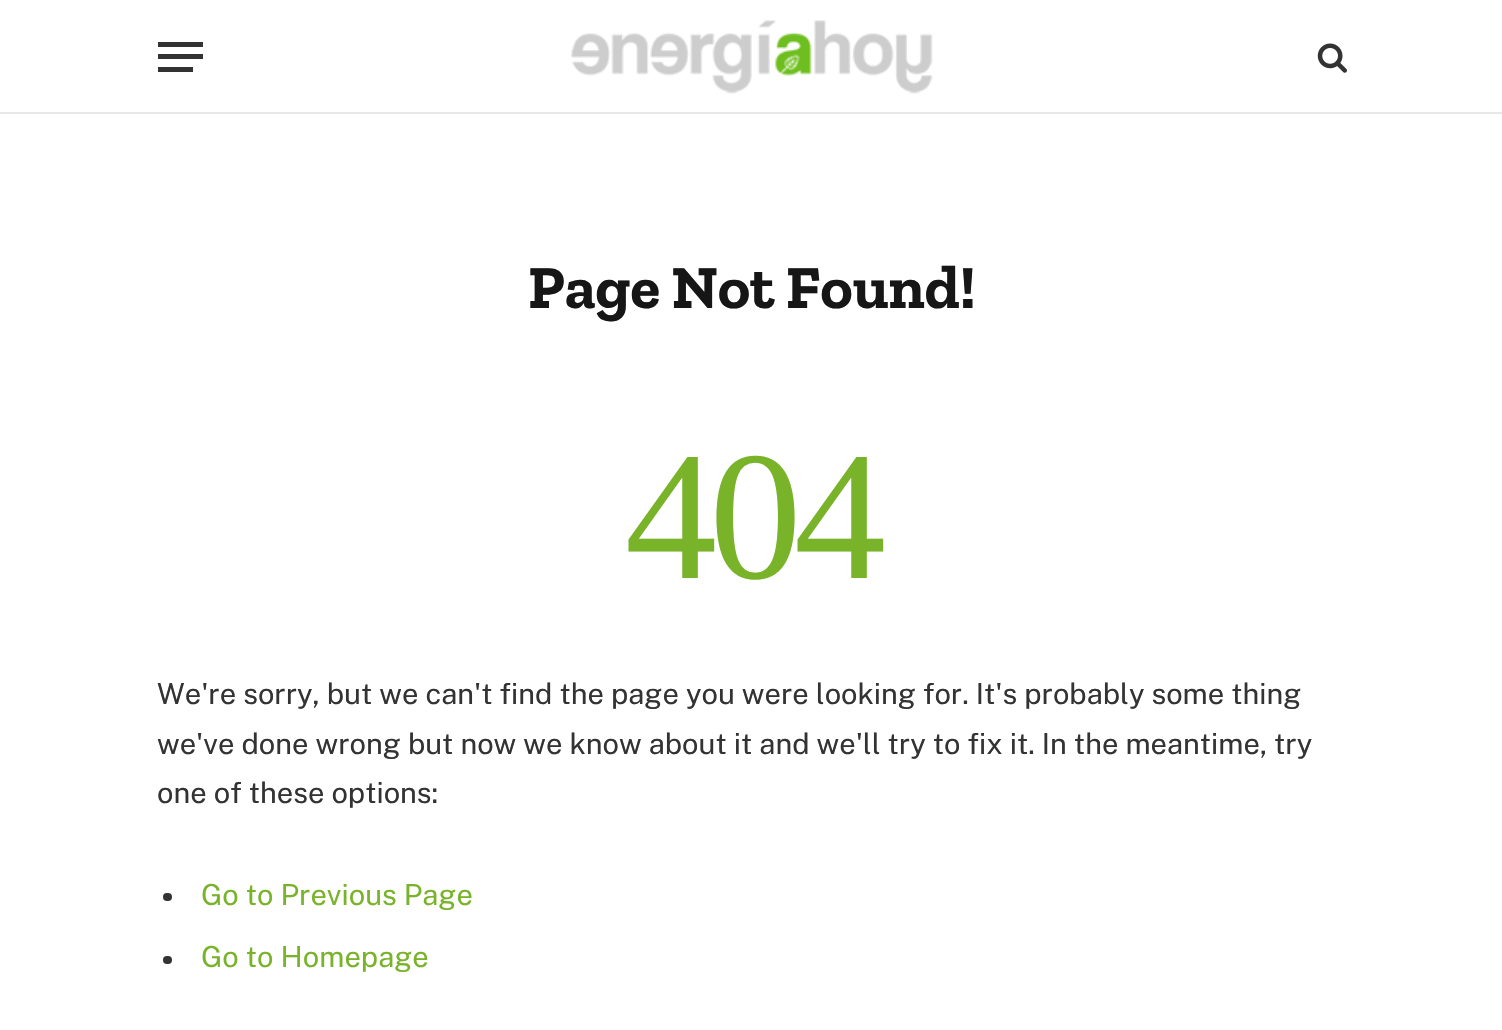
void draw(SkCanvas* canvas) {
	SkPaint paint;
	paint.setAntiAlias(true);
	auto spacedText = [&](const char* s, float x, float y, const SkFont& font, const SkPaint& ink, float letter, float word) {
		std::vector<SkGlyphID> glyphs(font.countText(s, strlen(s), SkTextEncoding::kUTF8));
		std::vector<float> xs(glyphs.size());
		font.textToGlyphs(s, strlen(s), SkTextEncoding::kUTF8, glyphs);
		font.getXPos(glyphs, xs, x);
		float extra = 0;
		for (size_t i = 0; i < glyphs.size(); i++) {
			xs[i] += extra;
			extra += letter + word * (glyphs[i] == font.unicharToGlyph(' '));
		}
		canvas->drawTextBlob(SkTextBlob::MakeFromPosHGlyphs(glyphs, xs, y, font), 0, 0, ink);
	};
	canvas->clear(0xffffffff);
	paint.setColor(0xffe8e8e8);
	canvas->drawRect(SkRect::MakeXYWH(0, 112, 1502, 2), paint);
	paint.setColor(0xff333333);
	canvas->drawRect(SkRect::MakeXYWH(158, 67, 35, 5), paint);
	canvas->drawRect(SkRect::MakeXYWH(158, 42, 45, 5), paint);
	canvas->drawRect(SkRect::MakeXYWH(158, 54, 45, 5), paint);
	canvas->drawImageRect(SkImages::DeferredFromEncodedData(SkData::MakeFromFileName("img1.png")), SkRect::MakeXYWH(571, 20, 362, 74), SkSamplingOptions());
	canvas->drawImageRect(SkImages::DeferredFromEncodedData(SkData::MakeFromFileName("img2.png")), SkRect::MakeXYWH(1317, 43, 30, 30), SkSamplingOptions());
	SkFont f1(fontMgr->matchFamilyStyle("Zilla Slab", SkFontStyle::Bold()), 61.25);
	f1.setSubpixel(true);
	paint.setColor(0xff161616);
	canvas->drawString("Page Not Found!", 528, 308, f1, paint);
	SkFont f2(fontMgr->matchFamilyStyle("Liberation Serif", SkFontStyle::Normal()), 184);
	f2.setSubpixel(true);
	paint.setColor(0xff79b32a);
	spacedText("404", 625, 578, f2, paint, -7.5, 0);
	SkFont f3(fontMgr->matchFamilyStyle("Public Sans", SkFontStyle::Normal()), 29.05);
	f3.setSubpixel(true);
	paint.setColor(0xff333333);
	canvas->drawString("We're sorry, but we can't find the page you were looking for. It's probably some thing", 157, 704, f3, paint);
	canvas->drawString("we've done wrong but now we know about it and we'll try to fix it. In the meantime, try", 157, 754, f3, paint);
	canvas->drawString("one of these options:", 157, 803, f3, paint);
	canvas->drawRoundRect(SkRect::MakeXYWH(163, 893, 9, 8), 4, 4, paint);
	paint.setColor(0xff79b32a);
	canvas->drawString("Go to Previous Page", 201, 905, f3, paint);
	paint.setColor(0xff333333);
	canvas->drawRoundRect(SkRect::MakeXYWH(163, 956, 9, 8), 4, 4, paint);
	paint.setColor(0xff79b32a);
	canvas->drawString("Go to Homepage", 201, 967, f3, paint);
}
